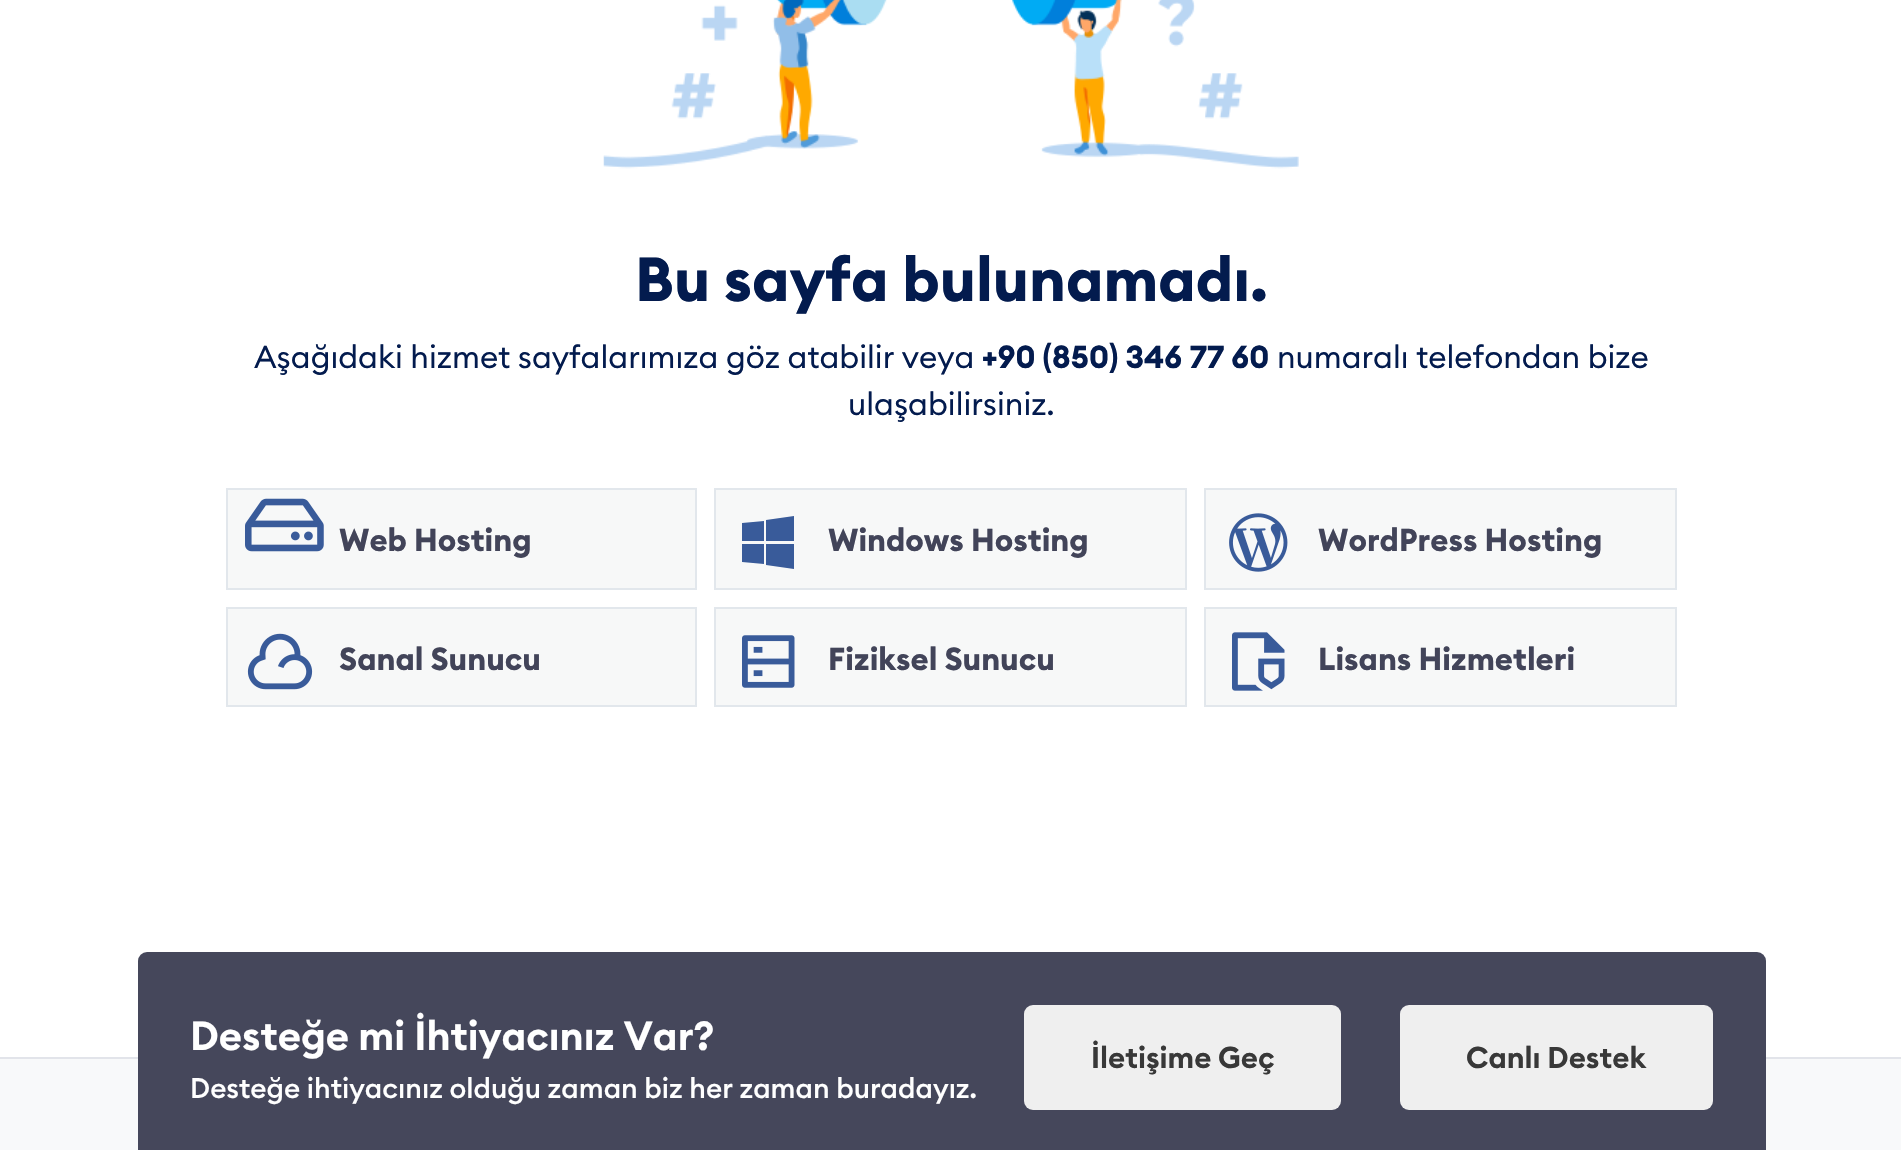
void draw(SkCanvas* canvas) {
	SkPaint paint;
	paint.setAntiAlias(true);
	auto svgPath = [&](const char* data, bool evenOdd = false) {
		SkPath result = *SkParsePath::FromSVGString(data);
		if (evenOdd) result.setFillType(SkPathFillType::kEvenOdd);
		return result;
	};
	canvas->clear(0xffffffff);
	canvas->drawImageRect(SkImages::DeferredFromEncodedData(SkData::MakeFromFileName("img1.png")), SkRect::MakeXYWH(603, 0, 696, 169), SkSamplingOptions());
	SkFont f1(fontMgr->matchFamilyStyle("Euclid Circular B", SkFontStyle::Bold()), 61.25);
	f1.setSubpixel(true);
	paint.setColor(0xff031b4e);
	canvas->drawString("Bu sayfa bulunamadı.", 635, 301, f1, paint);
	SkFont f2(fontMgr->matchFamilyStyle("Euclid Circular B", SkFontStyle::Normal()), 31.5);
	f2.setSubpixel(true);
	canvas->drawString("Aşağıdaki hizmet sayfalarımıza göz atabilir veya", 254, 368, f2, paint);
	SkFont f3(fontMgr->matchFamilyStyle("Euclid Circular B", SkFontStyle::Bold()), 31.5);
	f3.setSubpixel(true);
	canvas->drawString("+90 (850) 346 77 60", 982, 368, f3, paint);
	canvas->drawString("numaralı telefondan bize", 1277, 368, f2, paint);
	canvas->drawString("ulaşabilirsiniz.", 848, 415, f2, paint);
	paint.setColor(0xfff7f8f8);
	canvas->drawRect(SkRect::MakeXYWH(227, 489, 469, 100), paint);
	paint.setStroke(true);
	paint.setStrokeWidth(2);
	paint.setColor(0xffe2e7ec);
	canvas->drawRect(SkRect::MakeXYWH(227, 489, 469, 100), paint);
	canvas->drawImageRect(SkImages::DeferredFromEncodedData(SkData::MakeFromFileName("img2.png")), SkRect::MakeXYWH(245, 498, 79, 54), SkSamplingOptions());
	paint.setStroke(false);
	paint.setColor(0xff424459);
	canvas->drawString("Web Hosting", 339, 551, f3, paint);
	paint.setColor(0xfff7f8f8);
	canvas->drawRect(SkRect::MakeXYWH(715, 489, 471, 100), paint);
	paint.setStroke(true);
	paint.setColor(0xffe2e7ec);
	canvas->drawRect(SkRect::MakeXYWH(715, 489, 471, 100), paint);
	paint.setStroke(false);
	paint.setColor(0xff395b9a);
	canvas->drawPath(svgPath("M742 523L764 521V541H742ZM742 562L764 564V544H742ZM766 565L794 569V544H766ZM766 520V541H794V516Z"), paint);
	paint.setColor(0xff424459);
	canvas->drawString("Windows Hosting", 828, 551, f3, paint);
	paint.setColor(0xfff7f8f8);
	canvas->drawRect(SkRect::MakeXYWH(1205, 489, 471, 100), paint);
	paint.setStroke(true);
	paint.setColor(0xffe2e7ec);
	canvas->drawRect(SkRect::MakeXYWH(1205, 489, 471, 100), paint);
	canvas->drawImageRect(SkImages::DeferredFromEncodedData(SkData::MakeFromFileName("img3.png")), SkRect::MakeXYWH(1229, 513, 59, 59), SkSamplingOptions());
	paint.setStroke(false);
	paint.setColor(0xff424459);
	canvas->drawString("WordPress Hosting", 1318, 551, f3, paint);
	paint.setColor(0xfff7f8f8);
	canvas->drawRect(SkRect::MakeXYWH(227, 608, 469, 98), paint);
	paint.setStroke(true);
	paint.setColor(0xffe2e7ec);
	canvas->drawRect(SkRect::MakeXYWH(227, 608, 469, 98), paint);
	canvas->drawImageRect(SkImages::DeferredFromEncodedData(SkData::MakeFromFileName("img4.png")), SkRect::MakeXYWH(247, 633, 66, 57), SkSamplingOptions());
	paint.setStroke(false);
	paint.setColor(0xff424459);
	canvas->drawString("Sanal Sunucu", 339, 670, f3, paint);
	paint.setColor(0xfff7f8f8);
	canvas->drawRect(SkRect::MakeXYWH(715, 608, 471, 98), paint);
	paint.setStroke(true);
	paint.setColor(0xffe2e7ec);
	canvas->drawRect(SkRect::MakeXYWH(715, 608, 471, 98), paint);
	canvas->drawImageRect(SkImages::DeferredFromEncodedData(SkData::MakeFromFileName("img5.png")), SkRect::MakeXYWH(742, 635, 53, 53), SkSamplingOptions());
	paint.setStroke(false);
	paint.setColor(0xff424459);
	canvas->drawString("Fiziksel Sunucu", 828, 670, f3, paint);
	paint.setColor(0xfff7f8f8);
	canvas->drawRect(SkRect::MakeXYWH(1205, 608, 471, 98), paint);
	paint.setStroke(true);
	paint.setColor(0xffe2e7ec);
	canvas->drawRect(SkRect::MakeXYWH(1205, 608, 471, 98), paint);
	canvas->drawImageRect(SkImages::DeferredFromEncodedData(SkData::MakeFromFileName("img6.png")), SkRect::MakeXYWH(1232, 632, 53, 59), SkSamplingOptions());
	paint.setStroke(false);
	paint.setColor(0xff424459);
	canvas->drawString("Lisans Hizmetleri", 1318, 670, f3, paint);
	paint.setColor(0xfff8f9fa);
	canvas->drawRect(SkRect::MakeXYWH(0, 1059, 1901, 91), paint);
	paint.setColor(0xffe2e4ea);
	canvas->drawRect(SkRect::MakeXYWH(0, 1057, 1901, 2), paint);
	paint.setColor(0xff45475b);
	canvas->drawRoundRect(SkRect::MakeXYWH(138, 952, 1628, 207), 9, 9, paint);
	SkFont f4(fontMgr->matchFamilyStyle("Euclid Circular B", SkFontStyle(600, SkFontStyle::kNormal_Width, SkFontStyle::kUpright_Slant)), 40.25);
	f4.setSubpixel(true);
	paint.setColor(0xffffffff);
	canvas->drawString("Desteğe mi İhtiyacınız Var?", 190, 1050, f4, paint);
	SkFont f5(fontMgr->matchFamilyStyle("Euclid Circular B", SkFontStyle(500, SkFontStyle::kNormal_Width, SkFontStyle::kUpright_Slant)), 28);
	f5.setSubpixel(true);
	canvas->drawString("Desteğe ihtiyacınız olduğu zaman biz her zaman buradayız.", 190, 1098, f5, paint);
	paint.setColor(0xffefefef);
	canvas->drawRoundRect(SkRect::MakeXYWH(1024, 1005, 317, 105), 9, 9, paint);
	SkFont f6(fontMgr->matchFamilyStyle("Euclid Circular B", SkFontStyle(600, SkFontStyle::kNormal_Width, SkFontStyle::kUpright_Slant)), 29.75);
	f6.setSubpixel(true);
	paint.setColor(0xff383838);
	canvas->drawString("İletişime Geç", 1091, 1068, f6, paint);
	paint.setColor(0xffefefef);
	canvas->drawRoundRect(SkRect::MakeXYWH(1400, 1005, 313, 105), 9, 9, paint);
	paint.setColor(0xff383838);
	canvas->drawString("Canlı Destek", 1466, 1068, f6, paint);
}
